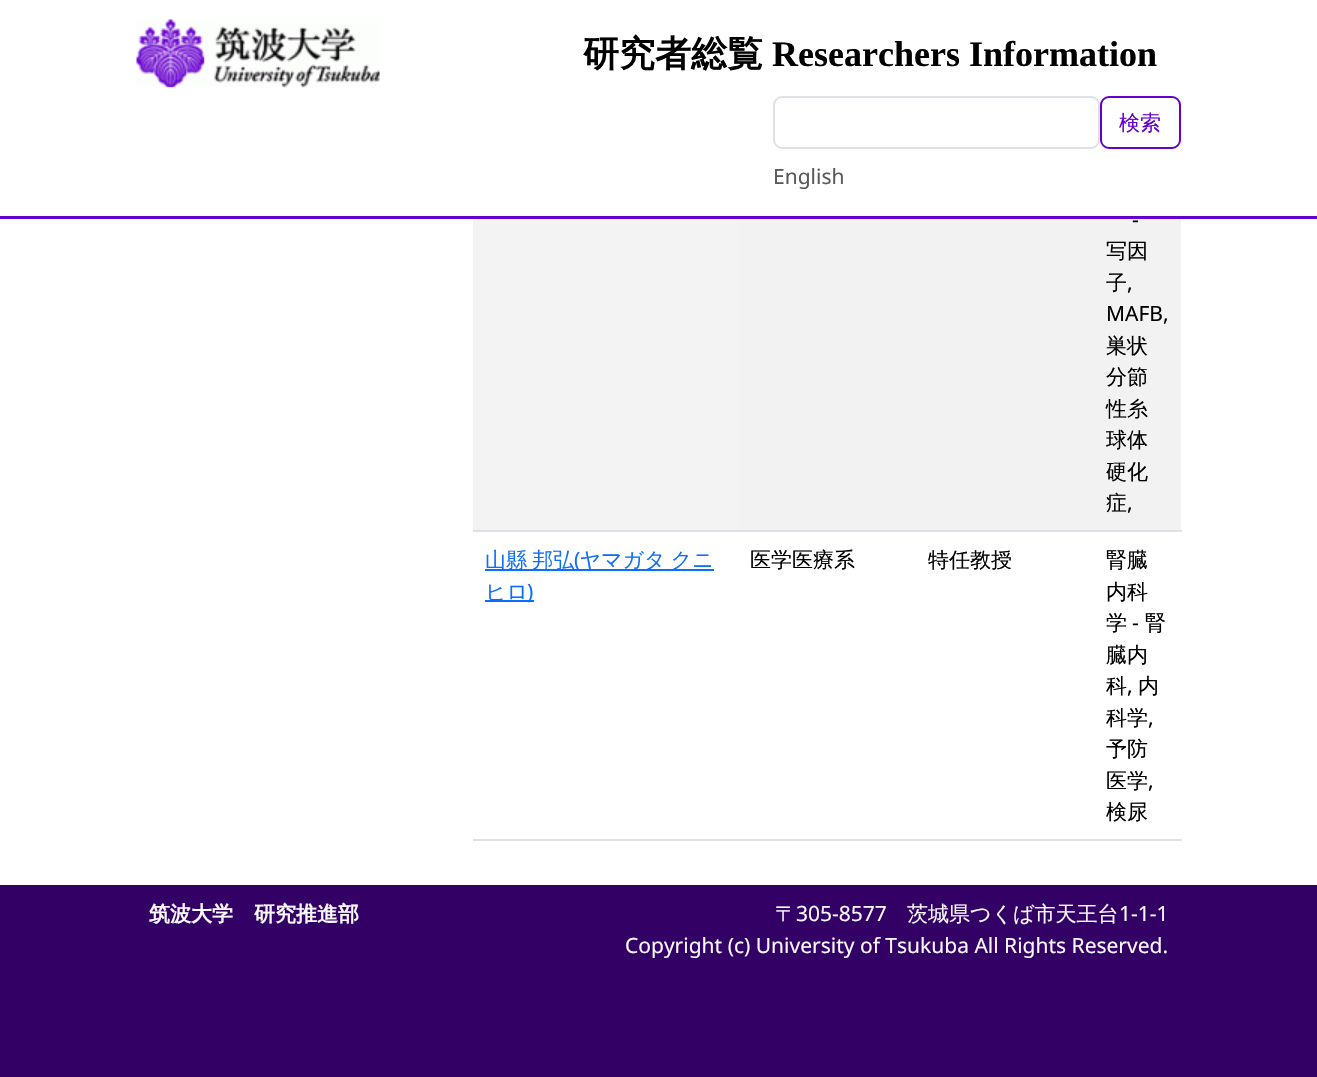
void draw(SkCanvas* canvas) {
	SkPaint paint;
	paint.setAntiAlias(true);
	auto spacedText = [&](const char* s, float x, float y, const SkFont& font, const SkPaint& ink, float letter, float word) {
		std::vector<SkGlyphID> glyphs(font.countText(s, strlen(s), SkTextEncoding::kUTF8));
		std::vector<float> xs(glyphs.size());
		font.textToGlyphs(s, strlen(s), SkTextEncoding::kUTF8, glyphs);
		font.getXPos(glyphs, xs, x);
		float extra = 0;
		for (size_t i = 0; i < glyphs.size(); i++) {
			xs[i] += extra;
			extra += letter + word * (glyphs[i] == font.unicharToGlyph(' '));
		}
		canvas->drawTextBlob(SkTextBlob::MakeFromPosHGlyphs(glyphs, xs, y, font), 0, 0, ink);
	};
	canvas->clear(0xffffffff);
	paint.setColor(0xff6600cc);
	canvas->drawRect(SkRect::MakeXYWH(0, 216, 1317, 3), paint);
	canvas->drawImageRect(SkImages::DeferredFromEncodedData(SkData::MakeFromFileName("img1.png")), SkRect::MakeXYWH(136, 19, 244, 69), SkSamplingOptions());
	SkFont f1(fontMgr->matchFamilyStyle("WenQuanYi Zen Hei", SkFontStyle::Bold()), 36);
	f1.setSubpixel(true);
	paint.setColor(0xff000000);
	canvas->drawString("研究者総覧", 583, 66, f1, paint);
	SkFont f2(fontMgr->matchFamilyStyle("Liberation Serif", SkFontStyle::Bold()), 36);
	f2.setSubpixel(true);
	canvas->drawString("Researchers Information", 772, 66, f2, paint);
	paint.setStroke(true);
	paint.setStrokeWidth(2);
	paint.setColor(0xffdee2e6);
	canvas->drawRoundRect(SkRect::MakeXYWH(774, 97, 325, 51), 8, 8, paint);
	paint.setColor(0xff6600cc);
	canvas->drawRoundRect(SkRect::MakeXYWH(1101, 97, 79, 51), 8, 8, paint);
	SkFont f3(fontMgr->matchFamilyStyle("WenQuanYi Zen Hei", SkFontStyle(500, SkFontStyle::kNormal_Width, SkFontStyle::kUpright_Slant)), 21);
	f3.setSubpixel(true);
	paint.setStroke(false);
	canvas->drawString("検索", 1119, 130, f3, paint);
	SkFont f4(fontMgr->matchFamilyStyle("Noto Sans", SkFontStyle::Normal()), 21);
	f4.setSubpixel(true);
	paint.setColor(0xff595959);
	canvas->drawString("English", 773, 184, f4, paint);
	paint.setColor(0xfff3f3f3);
	canvas->drawRect(SkRect::MakeXYWH(473, 219, 265, 311), paint);
	paint.setColor(0xfff2f2f2);
	canvas->drawRect(SkRect::MakeXYWH(738, 219, 443, 311), paint);
	paint.setColor(0xffdee2e6);
	canvas->drawRect(SkRect::MakeXYWH(473, 530, 709, 2), paint);
	paint.setColor(0xff000000);
	canvas->drawString("-", 1132, 227, f4, paint);
	canvas->drawString("写因", 1106, 258, f3, paint);
	canvas->drawString("子", 1106, 290, f3, paint);
	canvas->drawString(",", 1127, 290, f4, paint);
	canvas->drawString("MAFB,", 1106, 321, f4, paint);
	canvas->drawString("巣状", 1106, 353, f3, paint);
	canvas->drawString("分節", 1106, 384, f3, paint);
	canvas->drawString("性糸", 1106, 416, f3, paint);
	canvas->drawString("球体", 1106, 447, f3, paint);
	canvas->drawString("硬化", 1106, 479, f3, paint);
	canvas->drawString("症", 1106, 510, f3, paint);
	canvas->drawString(",", 1127, 510, f4, paint);
	paint.setColor(0xff0d6efd);
	canvas->drawRect(SkRect::MakeXYWH(485, 569, 229, 2), paint);
	spacedText("山縣 邦弘 ヤマガタ クニ", 485, 567, f3, paint, 0, -1);
	canvas->drawString("(", 574, 567, f4, paint);
	canvas->drawRect(SkRect::MakeXYWH(485, 600, 49, 2), paint);
	canvas->drawString("ヒロ", 485, 599, f3, paint);
	canvas->drawString(")", 527, 599, f4, paint);
	paint.setColor(0xff000000);
	canvas->drawString("医学医療系", 750, 567, f3, paint);
	canvas->drawString("特任教授", 928, 567, f3, paint);
	paint.setColor(0xffdee2e6);
	canvas->drawRect(SkRect::MakeXYWH(473, 839, 709, 2), paint);
	paint.setColor(0xff000000);
	canvas->drawString("腎臓", 1106, 567, f3, paint);
	canvas->drawString("内科", 1106, 599, f3, paint);
	canvas->drawString("学", 1106, 630, f3, paint);
	canvas->drawString("-", 1132, 630, f4, paint);
	canvas->drawString("腎", 1145, 630, f3, paint);
	canvas->drawString("臓内", 1106, 662, f3, paint);
	canvas->drawString("科", 1106, 693, f3, paint);
	canvas->drawString(",", 1127, 693, f4, paint);
	canvas->drawString("内", 1138, 693, f3, paint);
	canvas->drawString("科学", 1106, 725, f3, paint);
	canvas->drawString(",", 1148, 725, f4, paint);
	canvas->drawString("予防", 1106, 756, f3, paint);
	canvas->drawString("医学", 1106, 788, f3, paint);
	canvas->drawString(",", 1148, 788, f4, paint);
	canvas->drawString("検尿", 1106, 819, f3, paint);
	paint.setColor(0xff330066);
	canvas->drawRect(SkRect::MakeXYWH(0, 885, 1317, 192), paint);
	SkFont f5(fontMgr->matchFamilyStyle("WenQuanYi Zen Hei", SkFontStyle::Bold()), 21);
	f5.setSubpixel(true);
	paint.setColor(0xfff8f9fa);
	canvas->drawString("筑波大学　研究推進部", 149, 921, f5, paint);
	canvas->drawString("〒", 775, 921, f3, paint);
	canvas->drawString("305-8577", 796, 921, f4, paint);
	canvas->drawString("茨城県つくば市天王台", 907, 921, f3, paint);
	canvas->drawString("1-1-1", 1119, 921, f4, paint);
	canvas->drawString("Copyright (c) University of Tsukuba All Rights Reserved.", 625, 953, f4, paint);
}
